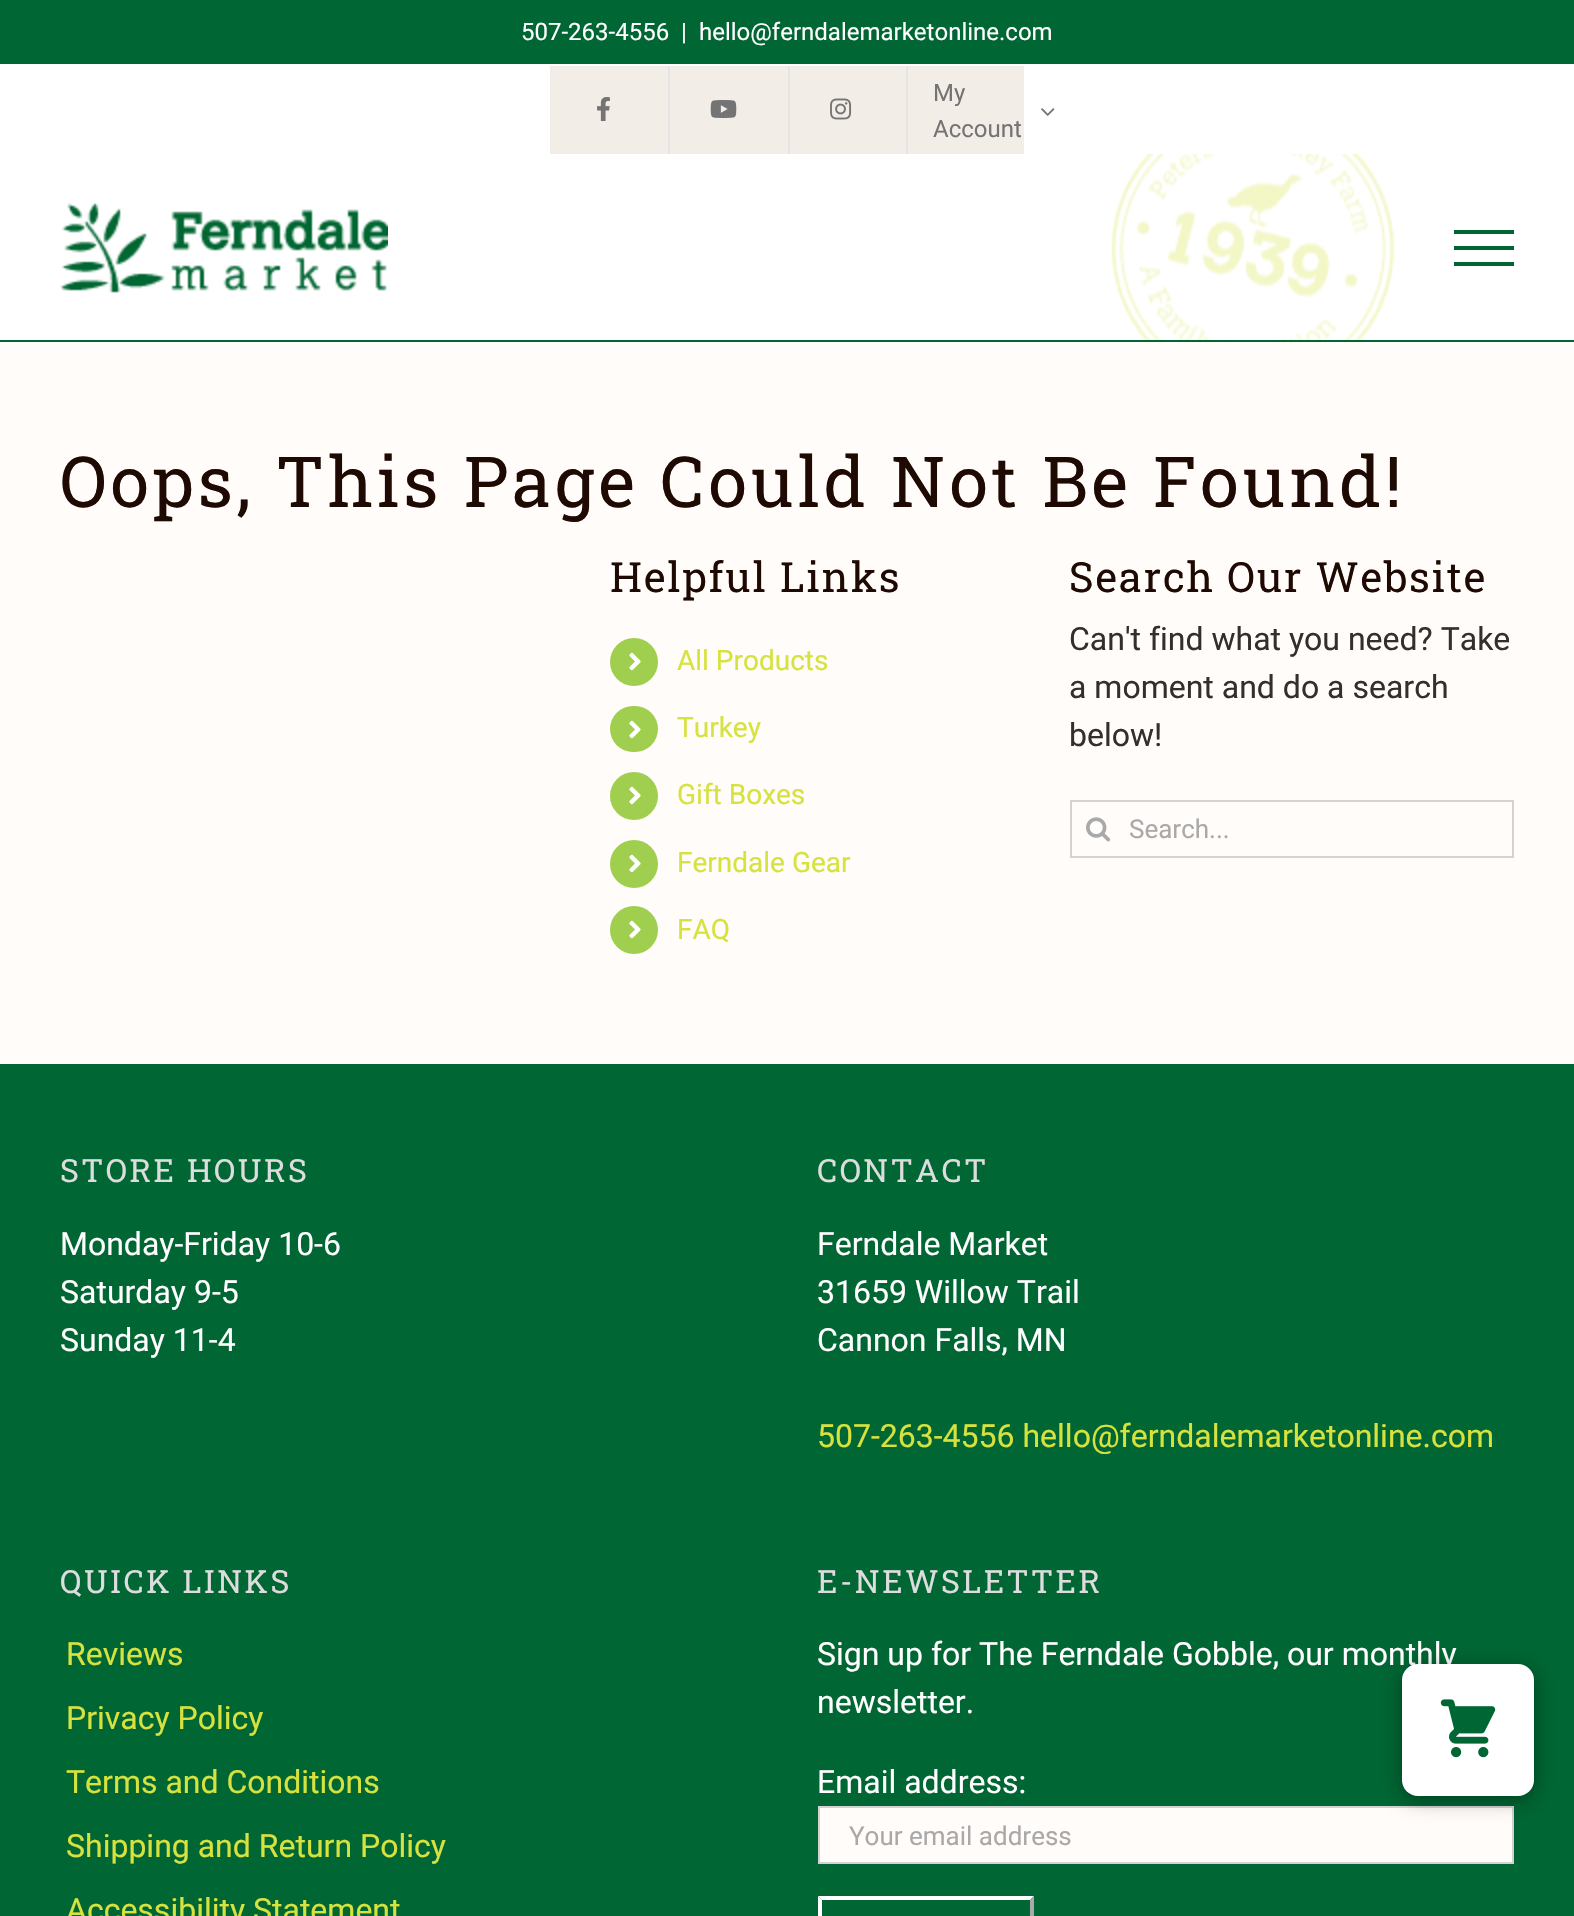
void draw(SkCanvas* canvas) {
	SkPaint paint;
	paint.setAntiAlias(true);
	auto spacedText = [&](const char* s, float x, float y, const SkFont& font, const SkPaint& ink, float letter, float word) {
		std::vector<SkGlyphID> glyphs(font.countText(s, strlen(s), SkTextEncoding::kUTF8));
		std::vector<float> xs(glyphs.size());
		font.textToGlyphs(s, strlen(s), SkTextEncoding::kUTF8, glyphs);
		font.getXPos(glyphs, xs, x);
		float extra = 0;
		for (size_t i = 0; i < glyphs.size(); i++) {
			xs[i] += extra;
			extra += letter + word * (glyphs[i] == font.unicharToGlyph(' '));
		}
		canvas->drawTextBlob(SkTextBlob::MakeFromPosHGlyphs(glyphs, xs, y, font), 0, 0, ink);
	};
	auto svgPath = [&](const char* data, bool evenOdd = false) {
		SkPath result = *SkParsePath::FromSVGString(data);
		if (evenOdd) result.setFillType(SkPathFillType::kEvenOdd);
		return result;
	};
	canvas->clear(0xfffffcfa);
	paint.setColor(0xffffffff);
	canvas->drawRect(SkRect::MakeXYWH(0, 64, 1574, 276), paint);
	paint.setColor(0xff006633);
	canvas->drawRect(SkRect::MakeXYWH(0, 0, 1574, 64), paint);
	SkFont f1(fontMgr->matchFamilyStyle("Roboto", SkFontStyle::Normal()), 24);
	f1.setSubpixel(true);
	paint.setColor(0xffffffff);
	canvas->drawString("507-263-4556", 521, 40, f1, paint);
	canvas->drawString("|", 681, 40, f1, paint);
	canvas->drawString("hello@ferndalemarketonline.com", 699, 40, f1, paint);
	paint.setColor(0xfff3ede8);
	canvas->drawRect(SkRect::MakeXYWH(550, 66, 118, 88), paint);
	canvas->drawImageRect(SkImages::DeferredFromEncodedData(SkData::MakeFromFileName("img1.png")), SkRect::MakeXYWH(597, 97, 13, 24), SkSamplingOptions());
	canvas->drawRect(SkRect::MakeXYWH(670, 66, 118, 88), paint);
	paint.setColor(0xffe5e5e5);
	canvas->drawRect(SkRect::MakeXYWH(668, 66, 2, 88), paint);
	canvas->drawImageRect(SkImages::DeferredFromEncodedData(SkData::MakeFromFileName("img2.png")), SkRect::MakeXYWH(710, 100, 27, 18), SkSamplingOptions());
	paint.setColor(0xfff3ede8);
	canvas->drawRect(SkRect::MakeXYWH(790, 66, 116, 88), paint);
	paint.setColor(0xffe5e5e5);
	canvas->drawRect(SkRect::MakeXYWH(788, 66, 2, 88), paint);
	canvas->drawImageRect(SkImages::DeferredFromEncodedData(SkData::MakeFromFileName("img3.png")), SkRect::MakeXYWH(830, 98, 22, 22), SkSamplingOptions());
	paint.setColor(0xfff3ede8);
	canvas->drawRect(SkRect::MakeXYWH(908, 66, 116, 88), paint);
	paint.setColor(0xffe5e5e5);
	canvas->drawRect(SkRect::MakeXYWH(906, 66, 2, 88), paint);
	paint.setColor(0xff747474);
	canvas->drawString("My", 933, 101, f1, paint);
	canvas->drawString("Account", 933, 137, f1, paint);
	canvas->drawImageRect(SkImages::DeferredFromEncodedData(SkData::MakeFromFileName("img4.png")), SkRect::MakeXYWH(1041, 108, 14, 8), SkSamplingOptions());
	canvas->drawImageRect(SkImages::DeferredFromEncodedData(SkData::MakeFromFileName("img5.png")), SkRect::MakeXYWH(1111, 154, 284, 189), SkSamplingOptions());
	paint.setColor(0xff006633);
	canvas->drawRect(SkRect::MakeXYWH(0, 340, 1574, 2), paint);
	canvas->drawImageRect(SkImages::DeferredFromEncodedData(SkData::MakeFromFileName("img6.png")), SkRect::MakeXYWH(60, 203, 328, 90), SkSamplingOptions());
	canvas->drawRect(SkRect::MakeXYWH(1454, 230, 60, 4), paint);
	canvas->drawRect(SkRect::MakeXYWH(1454, 246, 60, 4), paint);
	canvas->drawRect(SkRect::MakeXYWH(1454, 262, 60, 4), paint);
	SkFont f2(fontMgr->matchFamilyStyle("Roboto Slab", SkFontStyle::Normal()), 70.4);
	f2.setSubpixel(true);
	paint.setColor(0xff1f0a03);
	spacedText("Oops, This Page Could Not Be Found!", 60, 507, f2, paint, 3.85, 0);
	SkFont f3(fontMgr->matchFamilyStyle("Roboto Slab", SkFontStyle::Normal()), 41.6);
	f3.setSubpixel(true);
	spacedText("Helpful Links", 610, 592, f3, paint, 1.9, 0);
	paint.setColor(0xffa0ce4e);
	canvas->drawCircle(634, 662, 24, paint);
	canvas->drawImageRect(SkImages::DeferredFromEncodedData(SkData::MakeFromFileName("img7.png")), SkRect::MakeXYWH(629, 652, 12, 19), SkSamplingOptions());
	SkFont f4(fontMgr->matchFamilyStyle("Roboto", SkFontStyle::Normal()), 28);
	f4.setSubpixel(true);
	paint.setColor(0xffd7e23e);
	canvas->drawString("All Products", 677, 670, f4, paint);
	paint.setColor(0xffa0ce4e);
	canvas->drawRoundRect(SkRect::MakeXYWH(610, 706, 48, 46), 23, 23, paint);
	canvas->drawImageRect(SkImages::DeferredFromEncodedData(SkData::MakeFromFileName("img7.png")), SkRect::MakeXYWH(629, 720, 12, 19), SkSamplingOptions());
	paint.setColor(0xffd7e23e);
	canvas->drawString("Turkey", 677, 737, f4, paint);
	paint.setColor(0xffa0ce4e);
	canvas->drawCircle(634, 796, 24, paint);
	canvas->drawImageRect(SkImages::DeferredFromEncodedData(SkData::MakeFromFileName("img7.png")), SkRect::MakeXYWH(629, 786, 12, 19), SkSamplingOptions());
	paint.setColor(0xffd7e23e);
	canvas->drawString("Gift Boxes", 677, 804, f4, paint);
	paint.setColor(0xffa0ce4e);
	canvas->drawCircle(634, 864, 24, paint);
	canvas->drawImageRect(SkImages::DeferredFromEncodedData(SkData::MakeFromFileName("img7.png")), SkRect::MakeXYWH(629, 854, 12, 19), SkSamplingOptions());
	paint.setColor(0xffd7e23e);
	canvas->drawString("Ferndale Gear", 677, 872, f4, paint);
	paint.setColor(0xffa0ce4e);
	canvas->drawCircle(634, 930, 24, paint);
	canvas->drawImageRect(SkImages::DeferredFromEncodedData(SkData::MakeFromFileName("img7.png")), SkRect::MakeXYWH(629, 920, 12, 19), SkSamplingOptions());
	paint.setColor(0xffd7e23e);
	canvas->drawString("FAQ", 677, 939, f4, paint);
	paint.setColor(0xff1f0a03);
	spacedText("Search Our Website", 1069, 592, f3, paint, 1.9, 0);
	SkFont f5(fontMgr->matchFamilyStyle("Roboto", SkFontStyle::Normal()), 32);
	f5.setSubpixel(true);
	paint.setColor(0xff332f2d);
	canvas->drawString("Can't find what you need? Take", 1069, 650, f5, paint);
	canvas->drawString("a moment and do a search", 1069, 698, f5, paint);
	canvas->drawString("below!", 1069, 746, f5, paint);
	paint.setStroke(true);
	paint.setStrokeWidth(2);
	paint.setColor(0xffd2d2d2);
	canvas->drawRect(SkRect::MakeXYWH(1071, 801, 442, 56), paint);
	canvas->drawImageRect(SkImages::DeferredFromEncodedData(SkData::MakeFromFileName("img8.png")), SkRect::MakeXYWH(1086, 817, 25, 25), SkSamplingOptions());
	SkFont f6(fontMgr->matchFamilyStyle("Roboto", SkFontStyle::Normal()), 26);
	f6.setSubpixel(true);
	paint.setStroke(false);
	paint.setColor(0xffaaa9a9);
	canvas->drawString("Search...", 1129, 838, f6, paint);
	paint.setColor(0xff006633);
	canvas->drawRect(SkRect::MakeXYWH(0, 1064, 1574, 852), paint);
	SkFont f7(fontMgr->matchFamilyStyle("Roboto Slab", SkFontStyle::Normal()), 32);
	f7.setSubpixel(true);
	paint.setColor(0xffdddddd);
	spacedText("STORE HOURS", 60, 1182, f7, paint, 2.5, 0);
	paint.setColor(0xffffffff);
	canvas->drawString("Monday-Friday 10-6", 60, 1255, f5, paint);
	canvas->drawString("Saturday 9-5", 60, 1303, f5, paint);
	canvas->drawString("Sunday 11-4", 60, 1351, f5, paint);
	paint.setColor(0xffdddddd);
	spacedText("CONTACT", 817, 1182, f7, paint, 2.5, 0);
	paint.setColor(0xffffffff);
	canvas->drawString("Ferndale Market", 817, 1255, f5, paint);
	canvas->drawString("31659 Willow Trail", 817, 1303, f5, paint);
	canvas->drawString("Cannon Falls, MN", 817, 1351, f5, paint);
	paint.setColor(0xffd7e23e);
	canvas->drawString("507-263-4556 hello@ferndalemarketonline.com", 817, 1447, f5, paint);
	paint.setColor(0xffdddddd);
	spacedText("QUICK LINKS", 60, 1593, f7, paint, 2.5, 0);
	paint.setColor(0xffd7e23e);
	canvas->drawString("Reviews", 66, 1665, f5, paint);
	canvas->drawString("Privacy Policy", 66, 1729, f5, paint);
	canvas->drawString("Terms and Conditions", 66, 1793, f5, paint);
	canvas->drawString("Shipping and Return Policy", 66, 1857, f5, paint);
	canvas->drawString("Accessibility Statement", 66, 1921, f5, paint);
	paint.setColor(0xffdddddd);
	spacedText("E-NEWSLETTER", 817, 1593, f7, paint, 2.5, 0);
	paint.setColor(0xffffffff);
	canvas->drawString("Sign up for The Ferndale Gobble, our monthly", 817, 1665, f5, paint);
	canvas->drawString("newsletter.", 817, 1713, f5, paint);
	canvas->drawString("Email address:", 817, 1793, f5, paint);
	paint.setColor(0xfffffcfa);
	canvas->drawRect(SkRect::MakeXYWH(819, 1807, 694, 56), paint);
	paint.setStroke(true);
	paint.setColor(0xffd2d2d2);
	canvas->drawRect(SkRect::MakeXYWH(819, 1807, 694, 56), paint);
	paint.setStroke(false);
	paint.setColor(0xffaaa9a9);
	canvas->drawString("Your email address", 849, 1845, f6, paint);
	paint.setColor(0xffffffff);
	canvas->drawPath(svgPath("M818 1896H1034L1030 1900H822Z"), paint);
	paint.setColor(0xffaaaaaa);
	canvas->drawPath(svgPath("M1034 1896V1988L1030 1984V1900Z"), paint);
	paint.setColor(0xffffffff);
	canvas->drawPath(svgPath("M818 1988V1896L822 1900V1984Z"), paint);
	paint.setColor(0x5e000000);
	paint.setMaskFilter(SkMaskFilter::MakeBlur(kNormal_SkBlurStyle, 10));
	canvas->drawRoundRect(SkRect::MakeXYWH(1402, 1668, 132, 132), 16, 16, paint);
	paint.setMaskFilter(nullptr);
	paint.setColor(0xffffffff);
	canvas->drawRoundRect(SkRect::MakeXYWH(1402, 1664, 132, 132), 16, 16, paint);
	canvas->drawImageRect(SkImages::DeferredFromEncodedData(SkData::MakeFromFileName("img9.png")), SkRect::MakeXYWH(1440, 1699, 56, 59), SkSamplingOptions());
}
